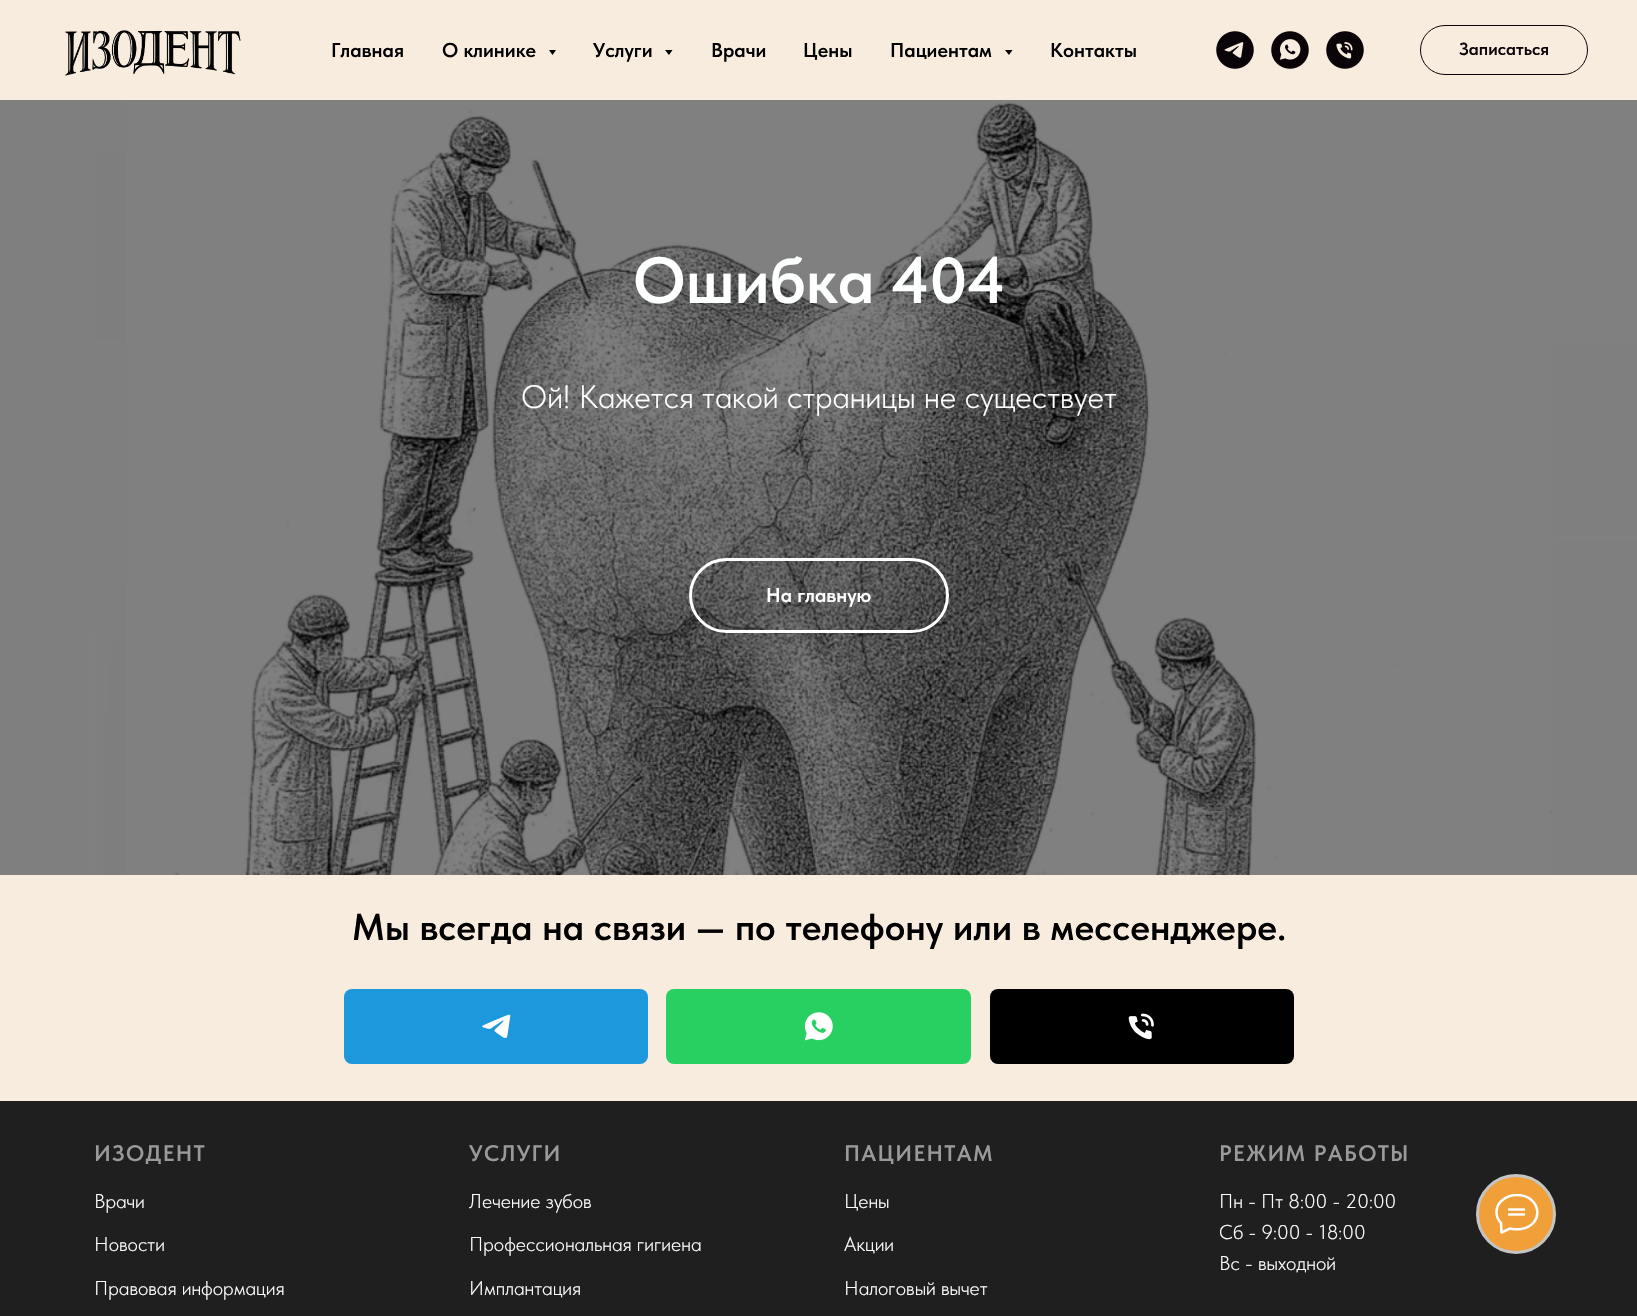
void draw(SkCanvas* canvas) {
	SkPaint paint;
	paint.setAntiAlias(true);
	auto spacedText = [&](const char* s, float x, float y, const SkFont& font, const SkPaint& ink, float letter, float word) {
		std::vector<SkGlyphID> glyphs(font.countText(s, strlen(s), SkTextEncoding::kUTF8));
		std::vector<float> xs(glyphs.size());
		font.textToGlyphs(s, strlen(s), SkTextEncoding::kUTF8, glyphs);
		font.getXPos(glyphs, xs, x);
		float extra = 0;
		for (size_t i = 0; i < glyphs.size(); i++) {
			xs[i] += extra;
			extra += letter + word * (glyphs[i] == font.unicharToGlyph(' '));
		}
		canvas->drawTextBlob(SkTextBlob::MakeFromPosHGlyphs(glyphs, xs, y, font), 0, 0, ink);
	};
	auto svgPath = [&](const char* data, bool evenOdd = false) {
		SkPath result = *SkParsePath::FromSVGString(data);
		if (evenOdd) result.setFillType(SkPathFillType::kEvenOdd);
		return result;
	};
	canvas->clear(0xfff8ecdf);
	canvas->drawImageRect(SkImages::DeferredFromEncodedData(SkData::MakeFromFileName("img1.png")), SkRect::MakeXYWH(65, 30, 176, 46), SkSamplingOptions());
	SkFont f1(fontMgr->matchFamilyStyle("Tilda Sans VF", SkFontStyle(600, SkFontStyle::kNormal_Width, SkFontStyle::kUpright_Slant)), 20);
	f1.setSubpixel(true);
	paint.setColor(0xff000000);
	canvas->drawString("Главная", 331, 57, f1, paint);
	canvas->drawString("О клинике", 442, 57, f1, paint);
	canvas->drawPath(svgPath("M549 50H556L552.5 55Z"), paint);
	canvas->drawString("Услуги", 593, 57, f1, paint);
	canvas->drawPath(svgPath("M665 50H672.5L669 55Z"), paint);
	canvas->drawString("Врачи", 711, 57, f1, paint);
	canvas->drawString("Цены", 803, 57, f1, paint);
	canvas->drawString("Пациентам", 890, 57, f1, paint);
	canvas->drawPath(svgPath("M1005 50H1012.5L1009 55Z"), paint);
	canvas->drawString("Контакты", 1050, 57, f1, paint);
	canvas->drawImageRect(SkImages::DeferredFromEncodedData(SkData::MakeFromFileName("img2.png")), SkRect::MakeXYWH(1216, 31, 38, 38), SkSamplingOptions());
	canvas->drawImageRect(SkImages::DeferredFromEncodedData(SkData::MakeFromFileName("img3.png")), SkRect::MakeXYWH(1271, 31, 38, 38), SkSamplingOptions());
	canvas->drawImageRect(SkImages::DeferredFromEncodedData(SkData::MakeFromFileName("img4.png")), SkRect::MakeXYWH(1326, 31, 38, 38), SkSamplingOptions());
	paint.setStroke(true);
	paint.setStrokeWidth(1);
	paint.setColor(0xff0a0307);
	canvas->drawRoundRect(SkRect::MakeXYWH(1420.5, 25.5, 167, 49), 24.5, 24.5, paint);
	SkFont f2(fontMgr->matchFamilyStyle("Tilda Sans VF", SkFontStyle(600, SkFontStyle::kNormal_Width, SkFontStyle::kUpright_Slant)), 17.5);
	f2.setSubpixel(true);
	paint.setStroke(false);
	canvas->drawString("Записаться", 1459, 55, f2, paint);
	paint.setColor(0xff1f1f1f);
	canvas->drawRect(SkRect::MakeXYWH(0, 1101, 1637, 215), paint);
	paint.setColor(0xfff1a039);
	canvas->drawCircle(1516, 1214, 38.5, paint);
	paint.setStroke(true);
	paint.setStrokeWidth(3);
	paint.setColor(0xffc4c4c4);
	canvas->drawCircle(1516, 1214, 38.5, paint);
	canvas->save();
	canvas->clipRect(SkRect::MakeXYWH(1495, 1194, 44, 40));
	paint.setStrokeWidth(2.5);
	paint.setStrokeCap(SkPaint::kRound_Cap);
	paint.setStrokeJoin(SkPaint::kRound_Join);
	paint.setColor(0xfffeffff);
	canvas->drawPath(svgPath("M1509 1209.5H1524M1509 1214.5H1524M1501 1223C1494.5 1216.5 1495 1206 1502.5 1200C1506.5 1196.5 1511.5 1195 1517 1195C1541 1195 1545.5 1225 1521 1229C1517 1230 1514 1229 1510 1228.5L1501.5 1232.5Z"), paint);
	canvas->restore();
	canvas->drawImageRect(SkImages::DeferredFromEncodedData(SkData::MakeFromFileName("img5.png")), SkRect::MakeXYWH(0, 100, 1637, 775), SkSamplingOptions());
	canvas->drawImageRect(SkImages::DeferredFromEncodedData(SkData::MakeFromFileName("img6.png")), SkRect::MakeXYWH(126, 100, 1427, 775), SkSamplingOptions());
	SkFont f3(fontMgr->matchFamilyStyle("Tilda Sans VF", SkFontStyle(600, SkFontStyle::kNormal_Width, SkFontStyle::kUpright_Slant)), 65);
	f3.setSubpixel(true);
	paint.setStroke(false);
	canvas->drawString("Ошибка 404", 633, 303, f3, paint);
	SkFont f4(fontMgr->matchFamilyStyle("Tilda Sans VF", SkFontStyle(300, SkFontStyle::kNormal_Width, SkFontStyle::kUpright_Slant)), 32.5);
	f4.setSubpixel(true);
	canvas->drawString("Ой! Кажется такой страницы не существует", 521, 408, f4, paint);
	paint.setStroke(true);
	paint.setStrokeWidth(3);
	paint.setStrokeCap(SkPaint::kButt_Cap);
	paint.setStrokeJoin(SkPaint::kMiter_Join);
	canvas->drawRoundRect(SkRect::MakeXYWH(690.5, 559.5, 257, 72), 36, 36, paint);
	paint.setStroke(false);
	canvas->drawString("На главную", 766, 602, f1, paint);
	SkFont f5(fontMgr->matchFamilyStyle("Tilda Sans VF", SkFontStyle(600, SkFontStyle::kNormal_Width, SkFontStyle::kUpright_Slant)), 37.5);
	f5.setSubpixel(true);
	paint.setColor(0xff000000);
	canvas->drawString("Мы всегда на связи — по телефону или в мессенджере.", 352, 940, f5, paint);
	paint.setColor(0xff1d98dc);
	canvas->drawRoundRect(SkRect::MakeXYWH(344, 989, 304, 75), 8, 8, paint);
	canvas->drawImageRect(SkImages::DeferredFromEncodedData(SkData::MakeFromFileName("img7.png")), SkRect::MakeXYWH(482, 1014, 29, 24), SkSamplingOptions());
	paint.setColor(0xff27d061);
	canvas->drawRoundRect(SkRect::MakeXYWH(666, 989, 305, 75), 8, 8, paint);
	canvas->drawImageRect(SkImages::DeferredFromEncodedData(SkData::MakeFromFileName("img8.png")), SkRect::MakeXYWH(804, 1012, 29, 29), SkSamplingOptions());
	paint.setColor(0xff000000);
	canvas->drawRoundRect(SkRect::MakeXYWH(990, 989, 304, 75), 8, 8, paint);
	canvas->drawImageRect(SkImages::DeferredFromEncodedData(SkData::MakeFromFileName("img9.png")), SkRect::MakeXYWH(1128, 1013, 26, 27), SkSamplingOptions());
	SkFont f6(fontMgr->matchFamilyStyle("Tilda Sans VF", SkFontStyle(600, SkFontStyle::kNormal_Width, SkFontStyle::kUpright_Slant)), 22.5);
	f6.setSubpixel(true);
	paint.setColor(0xff9a9a9a);
	spacedText("ИЗОДЕНТ", 94, 1161, f6, paint, 1.25, 0);
	SkFont f7(fontMgr->matchFamilyStyle("Tilda Sans VF", SkFontStyle(300, SkFontStyle::kNormal_Width, SkFontStyle::kUpright_Slant)), 20);
	f7.setSubpixel(true);
	paint.setColor(0xfffeffff);
	canvas->drawString("Врачи", 94, 1208, f7, paint);
	canvas->drawString("Новости", 94, 1251, f7, paint);
	canvas->drawString("Правовая информация", 94, 1295, f7, paint);
	paint.setColor(0xff9a9a9a);
	spacedText("УСЛУГИ", 469, 1161, f6, paint, 1.25, 0);
	paint.setColor(0xfffeffff);
	canvas->drawString("Лечение зубов", 469, 1208, f7, paint);
	canvas->drawString("Профессиональная гигиена", 469, 1251, f7, paint);
	canvas->drawString("Имплантация", 469, 1295, f7, paint);
	paint.setColor(0xff9a9a9a);
	spacedText("ПАЦИЕНТАМ", 844, 1161, f6, paint, 1.25, 0);
	paint.setColor(0xfffeffff);
	canvas->drawString("Цены", 844, 1208, f7, paint);
	canvas->drawString("Акции", 844, 1251, f7, paint);
	canvas->drawString("Налоговый вычет", 844, 1295, f7, paint);
	paint.setColor(0xff9a9a9a);
	spacedText("РЕЖИМ РАБОТЫ", 1219, 1161, f6, paint, 1.25, 0);
	paint.setColor(0xfffeffff);
	canvas->drawString("Пн - Пт 8:00 - 20:00", 1219, 1208, f7, paint);
	canvas->drawString("Сб - 9:00 - 18:00", 1219, 1239, f7, paint);
	canvas->drawString("Вс - выходной", 1219, 1270, f7, paint);
}
